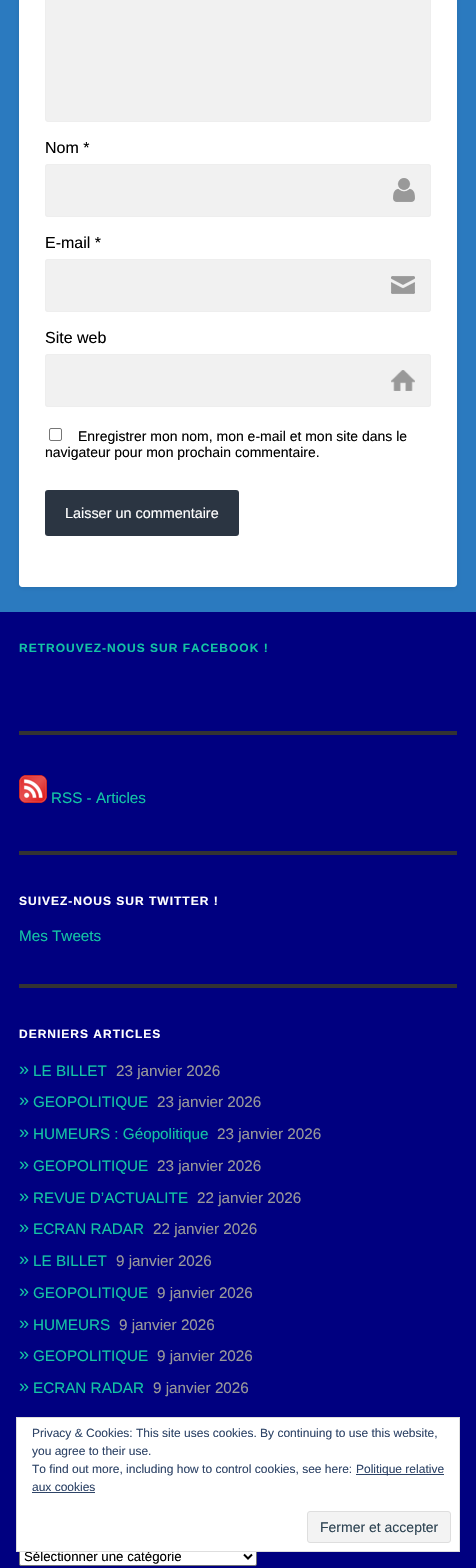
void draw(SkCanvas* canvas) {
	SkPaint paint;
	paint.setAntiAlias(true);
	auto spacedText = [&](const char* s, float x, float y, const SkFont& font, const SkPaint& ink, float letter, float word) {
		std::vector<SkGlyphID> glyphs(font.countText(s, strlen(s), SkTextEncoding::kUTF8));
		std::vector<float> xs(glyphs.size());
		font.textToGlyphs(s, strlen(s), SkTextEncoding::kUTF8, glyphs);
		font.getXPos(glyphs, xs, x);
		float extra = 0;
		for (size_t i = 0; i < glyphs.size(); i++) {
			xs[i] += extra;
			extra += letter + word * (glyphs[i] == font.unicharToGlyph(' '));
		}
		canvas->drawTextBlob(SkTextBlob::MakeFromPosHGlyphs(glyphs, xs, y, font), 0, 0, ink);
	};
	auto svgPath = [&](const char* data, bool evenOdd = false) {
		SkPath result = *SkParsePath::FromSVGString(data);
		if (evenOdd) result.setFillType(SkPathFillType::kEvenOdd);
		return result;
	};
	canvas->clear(0xff2b7abf);
	paint.setColor(0x1a000000);
	paint.setMaskFilter(SkMaskFilter::MakeBlur(kNormal_SkBlurStyle, 2));
	canvas->drawRoundRect(SkRect::MakeXYWH(19, -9, 438, 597), 3, 3, paint);
	paint.setMaskFilter(nullptr);
	paint.setColor(0xffffffff);
	canvas->drawPath(svgPath("M19-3H457V584C457 585.5 455.5 587 454 587H22C20.5 587 19 585.5 19 584Z"), paint);
	paint.setColor(0xfff1f1f1);
	canvas->drawRoundRect(SkRect::MakeXYWH(45.5, -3.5, 385, 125), 2.5, 2.5, paint);
	paint.setStroke(true);
	paint.setStrokeWidth(1);
	paint.setColor(0xffeeeeee);
	canvas->drawRoundRect(SkRect::MakeXYWH(45.5, -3.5, 385, 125), 2.5, 2.5, paint);
	SkFont f1(fontMgr->matchFamilyStyle("Liberation Sans", SkFontStyle::Normal()), 16);
	f1.setSubpixel(true);
	paint.setStroke(false);
	paint.setColor(0xff000000);
	canvas->drawString("Nom *", 45, 153, f1, paint);
	paint.setColor(0xfff1f1f1);
	canvas->drawRoundRect(SkRect::MakeXYWH(45, 164, 386, 53), 3, 3, paint);
	canvas->drawImageRect(SkImages::DeferredFromEncodedData(SkData::MakeFromFileName("img1.png")), SkRect::MakeXYWH(393, 178, 22, 24), SkSamplingOptions());
	paint.setStroke(true);
	paint.setColor(0xffeeeeee);
	canvas->drawRoundRect(SkRect::MakeXYWH(45.5, 164.5, 385, 52), 2.5, 2.5, paint);
	paint.setStroke(false);
	paint.setColor(0xff000000);
	canvas->drawString("E-mail *", 45, 248, f1, paint);
	paint.setColor(0xfff1f1f1);
	canvas->drawRoundRect(SkRect::MakeXYWH(45, 259, 386, 53), 3, 3, paint);
	canvas->drawImageRect(SkImages::DeferredFromEncodedData(SkData::MakeFromFileName("img2.png")), SkRect::MakeXYWH(391, 276, 24, 18), SkSamplingOptions());
	paint.setStroke(true);
	paint.setColor(0xffeeeeee);
	canvas->drawRoundRect(SkRect::MakeXYWH(45.5, 259.5, 385, 52), 2.5, 2.5, paint);
	paint.setStroke(false);
	paint.setColor(0xff000000);
	canvas->drawString("Site web", 45, 343, f1, paint);
	paint.setColor(0xfff1f1f1);
	canvas->drawRoundRect(SkRect::MakeXYWH(45, 354, 386, 53), 3, 3, paint);
	canvas->drawImageRect(SkImages::DeferredFromEncodedData(SkData::MakeFromFileName("img3.png")), SkRect::MakeXYWH(391, 370, 24, 21), SkSamplingOptions());
	paint.setStroke(true);
	paint.setColor(0xffeeeeee);
	canvas->drawRoundRect(SkRect::MakeXYWH(45.5, 354.5, 385, 52), 2.5, 2.5, paint);
	paint.setColor(0xff767676);
	canvas->drawRoundRect(SkRect::MakeXYWH(49.5, 428.5, 12, 12), 1.5, 1.5, paint);
	SkFont f2(fontMgr->matchFamilyStyle("Liberation Sans", SkFontStyle::Normal()), 14);
	f2.setSubpixel(true);
	paint.setStroke(false);
	paint.setColor(0xff000000);
	canvas->drawString("Enregistrer mon nom, mon e-mail et mon site dans le", 78, 441, f2, paint);
	canvas->drawString("navigateur pour mon prochain commentaire.", 45, 457, f2, paint);
	paint.setColor(0xff2b3542);
	canvas->drawRoundRect(SkRect::MakeXYWH(45, 490, 194, 46), 3, 3, paint);
	SkFont f3(fontMgr->matchFamilyStyle("Liberation Sans", SkFontStyle::Normal()), 14.4);
	f3.setSubpixel(true);
	paint.setColor(0xffffffff);
	canvas->drawString("Laisser un commentaire", 65, 518, f3, paint);
	paint.setColor(0xff000080);
	canvas->drawRect(SkRect::MakeXYWH(0, 612, 476, 956), paint);
	SkFont f4(fontMgr->matchFamilyStyle("Liberation Sans", SkFontStyle::Bold()), 12);
	f4.setSubpixel(true);
	paint.setColor(0xff13c4a5);
	spacedText("RETROUVEZ-NOUS SUR FACEBOOK !", 19, 652, f4, paint, 1, 0);
	paint.setColor(0xff333333);
	canvas->drawRect(SkRect::MakeXYWH(19, 731, 438, 4), paint);
	canvas->drawImageRect(SkImages::DeferredFromEncodedData(SkData::MakeFromFileName("img4.png")), SkRect::MakeXYWH(19, 775, 28, 28), SkSamplingOptions());
	SkFont f5(fontMgr->matchFamilyStyle("Liberation Sans", SkFontStyle::Normal()), 15.25);
	f5.setSubpixel(true);
	paint.setColor(0xff13c4a5);
	canvas->drawString("RSS - Articles", 51, 803, f5, paint);
	paint.setColor(0xff333333);
	canvas->drawRect(SkRect::MakeXYWH(19, 851, 438, 4), paint);
	paint.setColor(0xffffffff);
	spacedText("SUIVEZ-NOUS SUR TWITTER !", 19, 905, f4, paint, 1, 0);
	paint.setColor(0xff13c4a5);
	canvas->drawString("Mes Tweets", 19, 941, f5, paint);
	paint.setColor(0xff333333);
	canvas->drawRect(SkRect::MakeXYWH(19, 984, 438, 4), paint);
	paint.setColor(0xffffffff);
	spacedText("DERNIERS ARTICLES", 19, 1038, f4, paint, 1, 0);
	SkFont f6(fontMgr->matchFamilyStyle("Liberation Sans", SkFontStyle::Normal()), 18);
	f6.setSubpixel(true);
	paint.setColor(0xff13c4a5);
	canvas->drawString("»", 19, 1075, f6, paint);
	canvas->drawString("LE BILLET", 33, 1076, f5, paint);
	paint.setColor(0xff999999);
	canvas->drawString("23 janvier 2026", 116, 1076, f5, paint);
	paint.setColor(0xff13c4a5);
	canvas->drawString("»", 19, 1106, f6, paint);
	canvas->drawString("GEOPOLITIQUE", 33, 1107, f5, paint);
	paint.setColor(0xff999999);
	canvas->drawString("23 janvier 2026", 157, 1107, f5, paint);
	paint.setColor(0xff13c4a5);
	canvas->drawString("»", 19, 1138, f6, paint);
	canvas->drawString("HUMEURS : Géopolitique", 33, 1139, f5, paint);
	paint.setColor(0xff999999);
	canvas->drawString("23 janvier 2026", 217, 1139, f5, paint);
	paint.setColor(0xff13c4a5);
	canvas->drawString("»", 19, 1170, f6, paint);
	canvas->drawString("GEOPOLITIQUE", 33, 1171, f5, paint);
	paint.setColor(0xff999999);
	canvas->drawString("23 janvier 2026", 157, 1171, f5, paint);
	paint.setColor(0xff13c4a5);
	canvas->drawString("»", 19, 1202, f6, paint);
	canvas->drawString("REVUE D’ACTUALITE", 33, 1203, f5, paint);
	paint.setColor(0xff999999);
	canvas->drawString("22 janvier 2026", 197, 1203, f5, paint);
	paint.setColor(0xff13c4a5);
	canvas->drawString("»", 19, 1233, f6, paint);
	canvas->drawString("ECRAN RADAR", 33, 1234, f5, paint);
	paint.setColor(0xff999999);
	canvas->drawString("22 janvier 2026", 153, 1234, f5, paint);
	paint.setColor(0xff13c4a5);
	canvas->drawString("»", 19, 1265, f6, paint);
	canvas->drawString("LE BILLET", 33, 1266, f5, paint);
	paint.setColor(0xff999999);
	canvas->drawString("9 janvier 2026", 116, 1266, f5, paint);
	paint.setColor(0xff13c4a5);
	canvas->drawString("»", 19, 1297, f6, paint);
	canvas->drawString("GEOPOLITIQUE", 33, 1298, f5, paint);
	paint.setColor(0xff999999);
	canvas->drawString("9 janvier 2026", 157, 1298, f5, paint);
	paint.setColor(0xff13c4a5);
	canvas->drawString("»", 19, 1329, f6, paint);
	canvas->drawString("HUMEURS", 33, 1330, f5, paint);
	paint.setColor(0xff999999);
	canvas->drawString("9 janvier 2026", 119, 1330, f5, paint);
	paint.setColor(0xff13c4a5);
	canvas->drawString("»", 19, 1360, f6, paint);
	canvas->drawString("GEOPOLITIQUE", 33, 1361, f5, paint);
	paint.setColor(0xff999999);
	canvas->drawString("9 janvier 2026", 157, 1361, f5, paint);
	paint.setColor(0xff13c4a5);
	canvas->drawString("»", 19, 1392, f6, paint);
	canvas->drawString("ECRAN RADAR", 33, 1393, f5, paint);
	paint.setColor(0xff999999);
	canvas->drawString("9 janvier 2026", 153, 1393, f5, paint);
	paint.setColor(0xffffffff);
	canvas->drawRoundRect(SkRect::MakeXYWH(19.5, 1547.5, 237, 18), 1.5, 1.5, paint);
	paint.setStroke(true);
	paint.setColor(0xff767676);
	canvas->drawRoundRect(SkRect::MakeXYWH(19.5, 1547.5, 237, 18), 1.5, 1.5, paint);
	paint.setStrokeWidth(2);
	paint.setColor(0xff000000);
	canvas->drawPath(svgPath("M244 1554.5L248 1558.5L252 1554.5"), paint);
	SkFont f7(fontMgr->matchFamilyStyle("Liberation Sans", SkFontStyle::Normal()), 13.25);
	f7.setSubpixel(true);
	paint.setStroke(false);
	canvas->drawString("Sélectionner une catégorie", 24, 1561, f7, paint);
	paint.setColor(0xffffffff);
	canvas->drawRect(SkRect::MakeXYWH(16.5, 1417.5, 443, 134), paint);
	paint.setStroke(true);
	paint.setStrokeWidth(1);
	paint.setColor(0xffdedede);
	canvas->drawRect(SkRect::MakeXYWH(16.5, 1417.5, 443, 134), paint);
	SkFont f8(fontMgr->matchFamilyStyle("Liberation Sans", SkFontStyle::Normal()), 12);
	f8.setSubpixel(true);
	paint.setStroke(false);
	paint.setColor(0xff2e4467);
	canvas->drawString("Privacy & Cookies: This site uses cookies. By continuing to use this website,", 32, 1437, f8, paint);
	canvas->drawString("you agree to their use.", 32, 1455, f8, paint);
	canvas->drawString("To find out more, including how to control cookies, see here:", 32, 1473, f8, paint);
	canvas->drawRect(SkRect::MakeXYWH(356, 1474, 88, 1), paint);
	canvas->drawString("Politique relative", 356, 1473, f8, paint);
	canvas->drawString("aux cookies", 32, 1491, f8, paint);
	canvas->drawRect(SkRect::MakeXYWH(32, 1492, 63, 1), paint);
	paint.setColor(0xfff3f3f3);
	canvas->drawRoundRect(SkRect::MakeXYWH(307.5, 1511.5, 143, 31), 2.5, 2.5, paint);
	paint.setStroke(true);
	paint.setColor(0xffdedede);
	canvas->drawRoundRect(SkRect::MakeXYWH(307.5, 1511.5, 143, 31), 2.5, 2.5, paint);
	paint.setStroke(false);
	paint.setColor(0xff2e4453);
	canvas->drawString("Fermer et accepter", 320, 1532, f2, paint);
}
